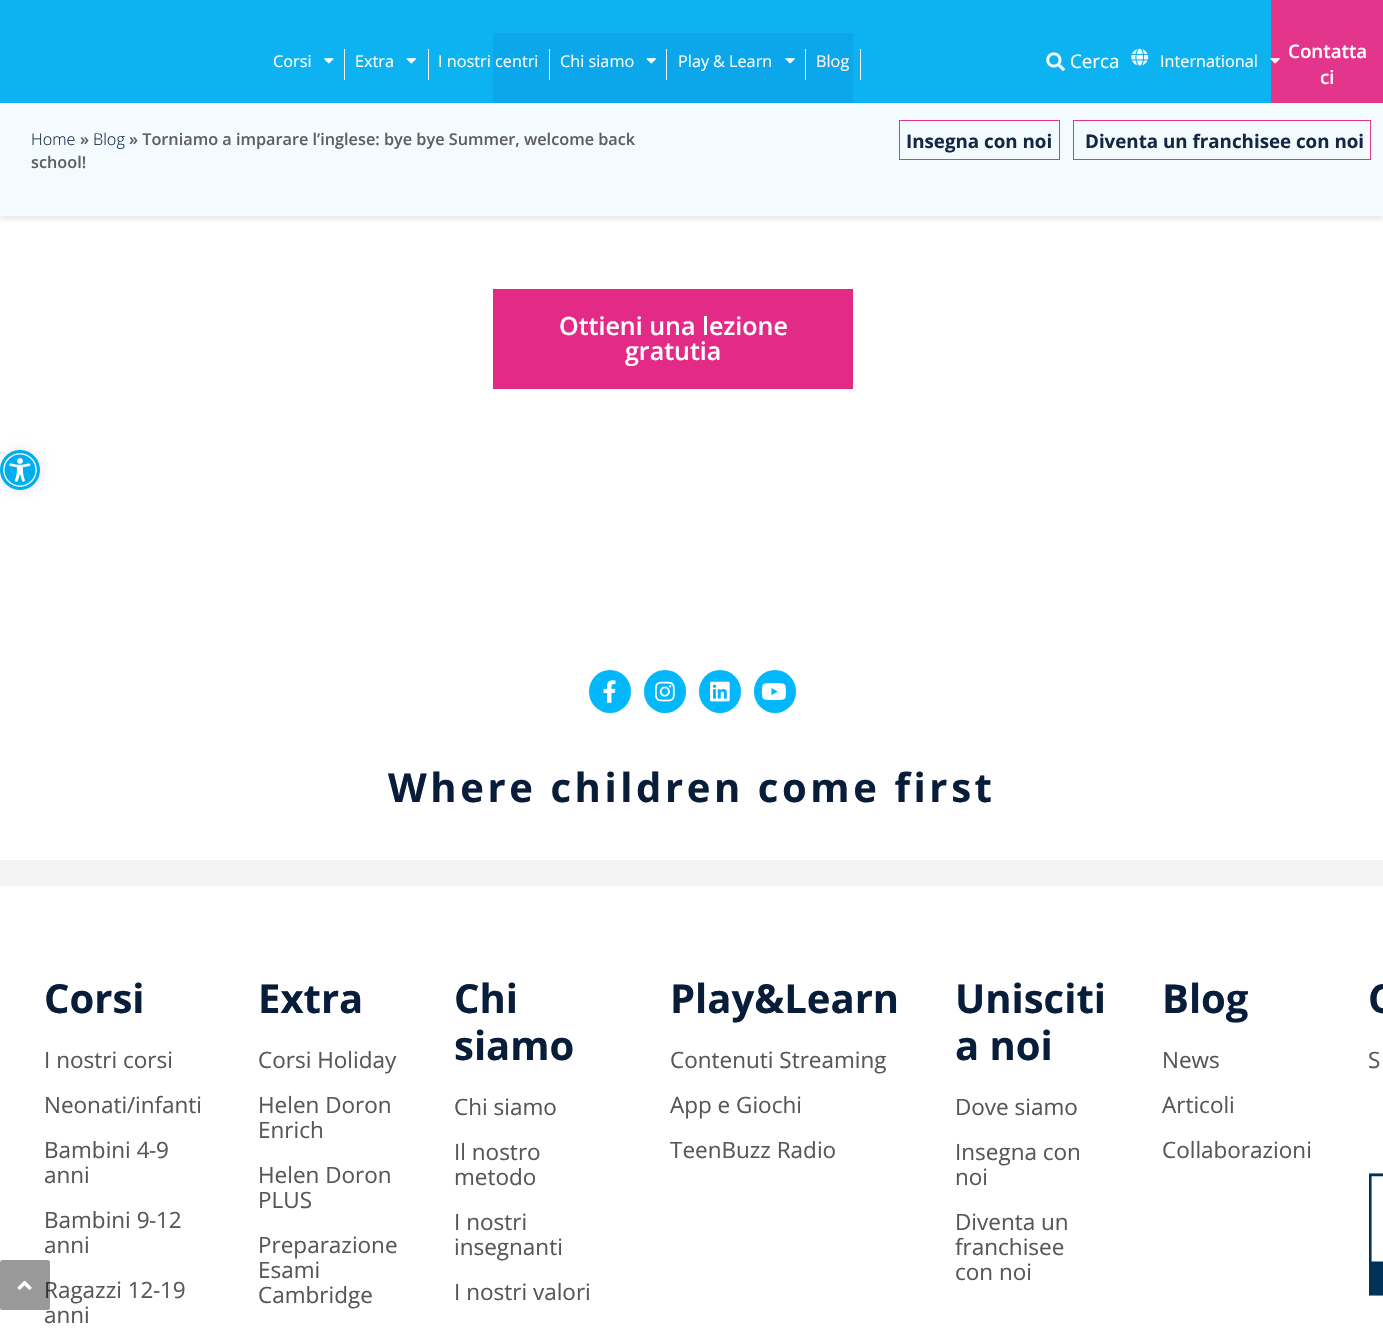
void draw(SkCanvas* canvas) {
	SkPaint paint;
	paint.setAntiAlias(true);
	auto spacedText = [&](const char* s, float x, float y, const SkFont& font, const SkPaint& ink, float letter, float word) {
		std::vector<SkGlyphID> glyphs(font.countText(s, strlen(s), SkTextEncoding::kUTF8));
		std::vector<float> xs(glyphs.size());
		font.textToGlyphs(s, strlen(s), SkTextEncoding::kUTF8, glyphs);
		font.getXPos(glyphs, xs, x);
		float extra = 0;
		for (size_t i = 0; i < glyphs.size(); i++) {
			xs[i] += extra;
			extra += letter + word * (glyphs[i] == font.unicharToGlyph(' '));
		}
		canvas->drawTextBlob(SkTextBlob::MakeFromPosHGlyphs(glyphs, xs, y, font), 0, 0, ink);
	};
	canvas->clear(0xffffffff);
	paint.setColor(0xff0db2f0);
	canvas->drawRect(SkRect::MakeXYWH(0, 0, 1271, 103), paint);
	paint.setColor(0xfff3fbfe);
	canvas->drawRect(SkRect::MakeXYWH(0, 103, 1383, 113), paint);
	paint.setColor(0x1a000000);
	paint.setMaskFilter(SkMaskFilter::MakeBlur(kNormal_SkBlurStyle, 6));
	canvas->drawRoundRect(SkRect::MakeXYWH(0, 450, 40, 40), 20, 20, paint);
	paint.setMaskFilter(nullptr);
	paint.setColor(0xffffffff);
	canvas->drawCircle(20, 470, 20, paint);
	canvas->drawImageRect(SkImages::DeferredFromEncodedData(SkData::MakeFromFileName("img1.png")), SkRect::MakeXYWH(0, 450, 40, 40), SkSamplingOptions());
	paint.setColor(0xff0ba7ea);
	canvas->drawRect(SkRect::MakeXYWH(493, 33, 360, 70), paint);
	canvas->save();
	canvas->clipRect(SkRect::MakeXYWH(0, 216, 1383, 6));
	paint.setColor(0x1a0d0d0d);
	paint.setMaskFilter(SkMaskFilter::MakeBlur(kNormal_SkBlurStyle, 3));
	canvas->drawRect(SkRect::MakeXYWH(0, 3, 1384, 216), paint);
	paint.setMaskFilter(nullptr);
	canvas->restore();
	paint.setColor(0xffffffff);
	canvas->drawRect(SkRect::MakeXYWH(344, 49, 1, 31), paint);
	SkFont f1(fontMgr->matchFamilyStyle("Open Sans", SkFontStyle::Normal()), 16.25);
	f1.setSubpixel(true);
	canvas->drawString("Corsi", 273, 67, f1, paint);
	canvas->drawImageRect(SkImages::DeferredFromEncodedData(SkData::MakeFromFileName("img2.png")), SkRect::MakeXYWH(324, 58, 10, 6), SkSamplingOptions());
	canvas->drawRect(SkRect::MakeXYWH(428, 49, 1, 31), paint);
	canvas->drawString("Extra", 355, 67, f1, paint);
	canvas->drawImageRect(SkImages::DeferredFromEncodedData(SkData::MakeFromFileName("img3.png")), SkRect::MakeXYWH(406, 58, 10, 6), SkSamplingOptions());
	paint.setColor(0xfffef4f9);
	canvas->drawRect(SkRect::MakeXYWH(549, 49, 1, 31), paint);
	paint.setColor(0xfff3fbfe);
	canvas->drawString("I nostri centri", 438, 67, f1, paint);
	paint.setColor(0xf2ffffff);
	canvas->drawRect(SkRect::MakeXYWH(666, 49, 1, 31), paint);
	paint.setColor(0xfff3fbfe);
	canvas->drawString("Chi siamo", 560, 67, f1, paint);
	canvas->drawImageRect(SkImages::DeferredFromEncodedData(SkData::MakeFromFileName("img4.png")), SkRect::MakeXYWH(646, 58, 10, 6), SkSamplingOptions());
	paint.setColor(0xfffef4f9);
	canvas->drawRect(SkRect::MakeXYWH(805, 49, 1, 31), paint);
	paint.setColor(0xfff3fbfe);
	canvas->drawString("Play", 678, 67, f1, paint);
	SkFont f2(fontMgr->matchFamilyStyle("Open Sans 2", SkFontStyle::Normal()), 16.25);
	f2.setSubpixel(true);
	canvas->drawString("&", 713, 67, f2, paint);
	canvas->drawString("Learn", 729, 67, f1, paint);
	canvas->drawImageRect(SkImages::DeferredFromEncodedData(SkData::MakeFromFileName("img5.png")), SkRect::MakeXYWH(785, 58, 10, 6), SkSamplingOptions());
	paint.setColor(0xffffffff);
	canvas->drawRect(SkRect::MakeXYWH(860, 49, 1, 31), paint);
	paint.setColor(0xfffef4f9);
	canvas->drawString("Blog", 816, 67, f1, paint);
	canvas->drawImageRect(SkImages::DeferredFromEncodedData(SkData::MakeFromFileName("img6.png")), SkRect::MakeXYWH(1046, 52, 19, 19), SkSamplingOptions());
	SkFont f3(fontMgr->matchFamilyStyle("Open Sans", SkFontStyle::Normal()), 18.75);
	f3.setSubpixel(true);
	paint.setColor(0xffffffff);
	canvas->drawString("Cerca", 1070, 68, f3, paint);
	canvas->drawImageRect(SkImages::DeferredFromEncodedData(SkData::MakeFromFileName("img7.png")), SkRect::MakeXYWH(1131, 48, 18, 18), SkSamplingOptions());
	canvas->drawString("International", 1160, 67, f1, paint);
	paint.setColor(0xffe3358c);
	canvas->drawRect(SkRect::MakeXYWH(1271, 0, 112, 103), paint);
	canvas->drawImageRect(SkImages::DeferredFromEncodedData(SkData::MakeFromFileName("img8.png")), SkRect::MakeXYWH(1270, 58, 10, 6), SkSamplingOptions());
	SkFont f4(fontMgr->matchFamilyStyle("Open Sans", SkFontStyle(600, SkFontStyle::kNormal_Width, SkFontStyle::kUpright_Slant)), 18.75);
	f4.setSubpixel(true);
	paint.setColor(0xffffffff);
	canvas->drawString("Contatta", 1288, 58, f4, paint);
	canvas->drawString("ci", 1320, 84, f4, paint);
	SkFont f5(fontMgr->matchFamilyStyle("Open Sans", SkFontStyle(300, SkFontStyle::kNormal_Width, SkFontStyle::kUpright_Slant)), 16.25);
	f5.setSubpixel(true);
	paint.setColor(0xff142843);
	canvas->drawString("Home", 31, 145, f5, paint);
	SkFont f6(fontMgr->matchFamilyStyle("Open Sans", SkFontStyle(600, SkFontStyle::kNormal_Width, SkFontStyle::kUpright_Slant)), 16.25);
	f6.setSubpixel(true);
	paint.setColor(0xff5f5f5f);
	canvas->drawString("»", 80, 145, f6, paint);
	paint.setColor(0xff142843);
	canvas->drawString("Blog", 93, 145, f5, paint);
	paint.setColor(0xff5f5f5f);
	canvas->drawString("» Torniamo a imparare l’inglese: bye bye Summer, welcome back", 129, 145, f6, paint);
	canvas->drawString("school!", 31, 168, f6, paint);
	paint.setStroke(true);
	paint.setStrokeWidth(1);
	paint.setColor(0xffe3358c);
	canvas->drawRect(SkRect::MakeXYWH(899.5, 120.5, 160, 39), paint);
	SkFont f7(fontMgr->matchFamilyStyle("Open Sans", SkFontStyle::Bold()), 18.75);
	f7.setSubpixel(true);
	paint.setStroke(false);
	paint.setColor(0xff142843);
	canvas->drawString("Insegna con noi", 906, 148, f7, paint);
	canvas->drawString("Diventa un franchisee con noi", 1085, 148, f7, paint);
	paint.setColor(0xffe3358c);
	canvas->drawRect(SkRect::MakeXYWH(1073, 120, 298, 1), paint);
	canvas->drawRect(SkRect::MakeXYWH(1073, 159, 291, 1), paint);
	canvas->drawRect(SkRect::MakeXYWH(1073, 120, 1, 40), paint);
	canvas->drawRect(SkRect::MakeXYWH(1370, 120, 1, 40), paint);
	canvas->drawRect(SkRect::MakeXYWH(1364, 159, 7, 1), paint);
	paint.setColor(0xffe22a86);
	canvas->drawRect(SkRect::MakeXYWH(493, 289, 360, 100), paint);
	SkFont f8(fontMgr->matchFamilyStyle("Open Sans", SkFontStyle(600, SkFontStyle::kNormal_Width, SkFontStyle::kUpright_Slant)), 25);
	f8.setSubpixel(true);
	paint.setColor(0xffffffff);
	canvas->drawString("Ottieni una lezione", 559, 335, f8, paint);
	canvas->drawString("gratutia", 625, 360, f8, paint);
	paint.setColor(0xff02b7fa);
	canvas->drawRoundRect(SkRect::MakeXYWH(589, 670, 42, 43), 21, 21, paint);
	canvas->drawImageRect(SkImages::DeferredFromEncodedData(SkData::MakeFromFileName("img9.png")), SkRect::MakeXYWH(603, 680, 13, 23), SkSamplingOptions());
	canvas->drawRoundRect(SkRect::MakeXYWH(644, 670, 42, 43), 21, 21, paint);
	canvas->drawImageRect(SkImages::DeferredFromEncodedData(SkData::MakeFromFileName("img10.png")), SkRect::MakeXYWH(655, 681, 20, 21), SkSamplingOptions());
	canvas->drawRoundRect(SkRect::MakeXYWH(699, 670, 42, 43), 21, 21, paint);
	canvas->drawImageRect(SkImages::DeferredFromEncodedData(SkData::MakeFromFileName("img11.png")), SkRect::MakeXYWH(710, 681, 20, 21), SkSamplingOptions());
	canvas->drawRoundRect(SkRect::MakeXYWH(754, 670, 42, 43), 21, 21, paint);
	canvas->drawImageRect(SkImages::DeferredFromEncodedData(SkData::MakeFromFileName("img12.png")), SkRect::MakeXYWH(761, 683, 25, 17), SkSamplingOptions());
	SkFont f9(fontMgr->matchFamilyStyle("Open Sans", SkFontStyle::Bold()), 40);
	f9.setSubpixel(true);
	paint.setColor(0xff081d39);
	spacedText("Where children come first", 388, 802, f9, paint, 3.6, 0);
	paint.setColor(0xfff3f3f3);
	canvas->drawRect(SkRect::MakeXYWH(0, 860, 1383, 26), paint);
	paint.setColor(0xff081d39);
	canvas->drawString("Corsi", 44, 1013, f9, paint);
	SkFont f10(fontMgr->matchFamilyStyle("Open Sans", SkFontStyle::Normal()), 22.5);
	f10.setSubpixel(true);
	paint.setColor(0xff575757);
	canvas->drawString("I nostri corsi", 44, 1068, f10, paint);
	canvas->drawString("Neonati", 44, 1113, f10, paint);
	SkFont f11(fontMgr->matchFamilyStyle("Open Sans 2", SkFontStyle::Normal()), 22.5);
	f11.setSubpixel(true);
	canvas->drawString("/", 127, 1113, f11, paint);
	canvas->drawString("infanti", 135, 1113, f10, paint);
	canvas->drawString("Bambini 4", 44, 1158, f10, paint);
	canvas->drawString("-", 149, 1158, f11, paint);
	canvas->drawString("9", 156, 1158, f10, paint);
	canvas->drawString("anni", 44, 1183, f10, paint);
	canvas->drawString("Bambini 9", 44, 1228, f10, paint);
	canvas->drawString("-", 149, 1228, f11, paint);
	canvas->drawString("12", 156, 1228, f10, paint);
	canvas->drawString("anni", 44, 1253, f10, paint);
	canvas->drawString("Ragazzi 12", 44, 1298, f10, paint);
	canvas->drawString("-", 153, 1298, f11, paint);
	canvas->drawString("19", 160, 1298, f10, paint);
	canvas->drawString("anni", 44, 1323, f10, paint);
	paint.setColor(0xff081d39);
	canvas->drawString("Extra", 258, 1013, f9, paint);
	paint.setColor(0xff575757);
	canvas->drawString("Corsi Holiday", 258, 1068, f10, paint);
	canvas->drawString("Helen Doron", 258, 1113, f10, paint);
	canvas->drawString("Enrich", 258, 1138, f10, paint);
	canvas->drawString("Helen Doron", 258, 1183, f10, paint);
	canvas->drawString("PLUS", 258, 1208, f10, paint);
	canvas->drawString("Preparazione", 258, 1253, f10, paint);
	canvas->drawString("Esami", 258, 1278, f10, paint);
	canvas->drawString("Cambridge", 258, 1303, f10, paint);
	paint.setColor(0xff081d39);
	canvas->drawString("Chi", 454, 1013, f9, paint);
	canvas->drawString("siamo", 454, 1060, f9, paint);
	paint.setColor(0xff575757);
	canvas->drawString("Chi siamo", 454, 1115, f10, paint);
	canvas->drawString("Il nostro", 454, 1160, f10, paint);
	canvas->drawString("metodo", 454, 1185, f10, paint);
	canvas->drawString("I nostri", 454, 1230, f10, paint);
	canvas->drawString("insegnanti", 454, 1255, f10, paint);
	canvas->drawString("I nostri valori", 454, 1300, f10, paint);
	paint.setColor(0xff081d39);
	canvas->drawString("Play&Learn", 670, 1013, f9, paint);
	paint.setColor(0xff575757);
	canvas->drawString("Contenuti Streaming", 670, 1068, f10, paint);
	canvas->drawString("App e Giochi", 670, 1113, f10, paint);
	canvas->drawString("TeenBuzz Radio", 670, 1158, f10, paint);
	paint.setColor(0xff081d39);
	canvas->drawString("Unisciti", 955, 1013, f9, paint);
	canvas->drawString("a noi", 955, 1060, f9, paint);
	paint.setColor(0xff575757);
	canvas->drawString("Dove siamo", 955, 1115, f10, paint);
	canvas->drawString("Insegna con", 955, 1160, f10, paint);
	canvas->drawString("noi", 955, 1185, f10, paint);
	canvas->drawString("Diventa un", 955, 1230, f10, paint);
	canvas->drawString("franchisee", 955, 1255, f10, paint);
	canvas->drawString("con noi", 955, 1280, f10, paint);
	paint.setColor(0xff081d39);
	canvas->drawString("Blog", 1162, 1013, f9, paint);
	paint.setColor(0xff575757);
	canvas->drawString("News", 1162, 1068, f10, paint);
	canvas->drawString("Articoli", 1162, 1113, f10, paint);
	canvas->drawString("Collaborazioni", 1162, 1158, f10, paint);
	paint.setColor(0xff081d39);
	canvas->drawString("C", 1368, 1013, f9, paint);
	paint.setColor(0xff575757);
	canvas->drawString("S", 1368, 1068, f10, paint);
	canvas->drawImageRect(SkImages::DeferredFromEncodedData(SkData::MakeFromFileName("img13.png")), SkRect::MakeXYWH(1369, 1173, 14, 123), SkSamplingOptions());
	paint.setColor(0x66000000);
	canvas->drawRoundRect(SkRect::MakeXYWH(0, 1260, 50, 50), 2.5, 2.5, paint);
	canvas->drawImageRect(SkImages::DeferredFromEncodedData(SkData::MakeFromFileName("img14.png")), SkRect::MakeXYWH(17, 1280, 15, 10), SkSamplingOptions());
}
